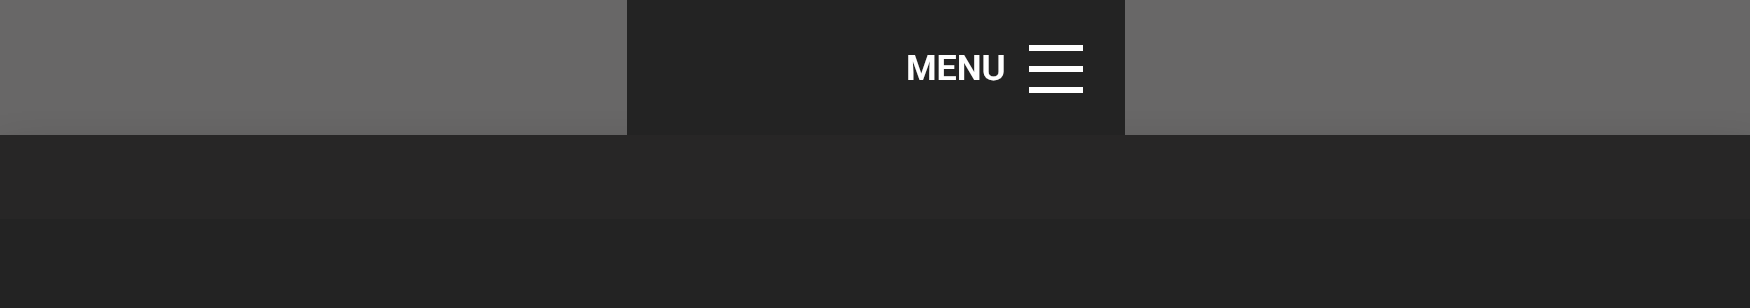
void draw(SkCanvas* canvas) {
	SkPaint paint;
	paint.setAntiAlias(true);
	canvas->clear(0xff686767);
	paint.setColor(0x66000000);
	paint.setMaskFilter(SkMaskFilter::MakeBlur(kNormal_SkBlurStyle, 22.5));
	canvas->drawRect(SkRect::MakeXYWH(0, 162, 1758, 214), paint);
	paint.setMaskFilter(nullptr);
	paint.setColor(0xff232323);
	canvas->drawRect(SkRect::MakeXYWH(627, 0, 498, 135), paint);
	SkFont f1(fontMgr->matchFamilyStyle("Yantramanav", SkFontStyle::Bold()), 39);
	f1.setSubpixel(true);
	paint.setColor(0xffffffff);
	canvas->drawString("MENU", 906, 80, f1, paint);
	canvas->drawRect(SkRect::MakeXYWH(1029, 87, 54, 6), paint);
	canvas->drawRect(SkRect::MakeXYWH(1029, 66, 54, 6), paint);
	canvas->drawRect(SkRect::MakeXYWH(1029, 45, 54, 6), paint);
	paint.setColor(0xff272626);
	canvas->drawRect(SkRect::MakeXYWH(0, 135, 1750, 84), paint);
	paint.setColor(0xff232323);
	canvas->drawRect(SkRect::MakeXYWH(0, 219, 1750, 89), paint);
}
